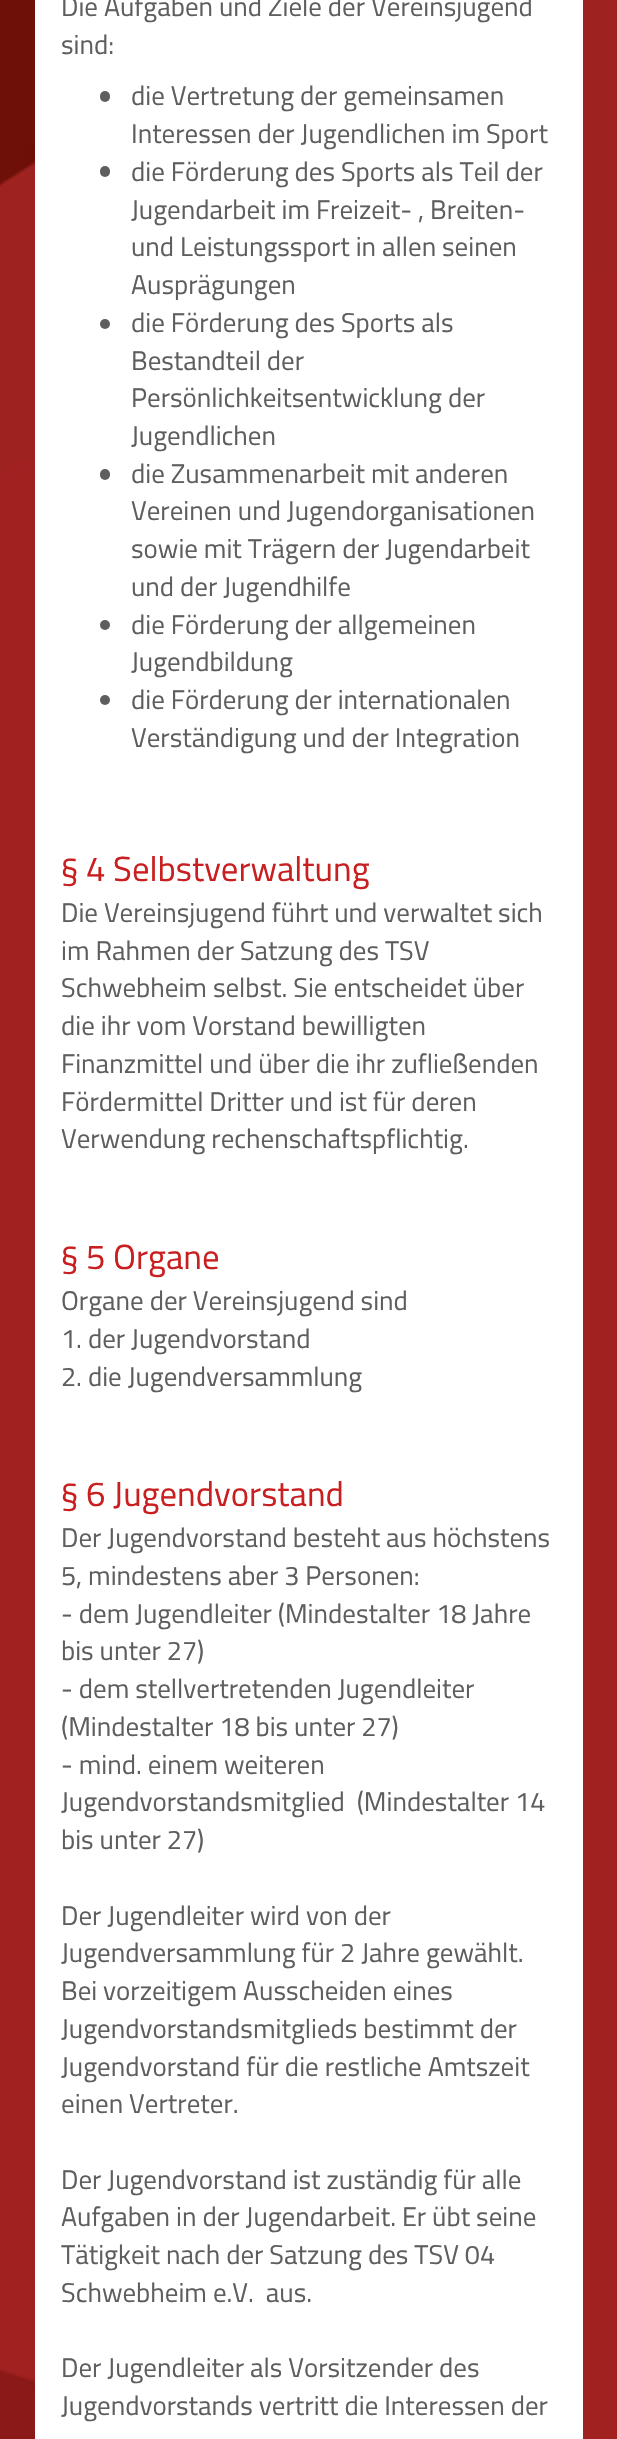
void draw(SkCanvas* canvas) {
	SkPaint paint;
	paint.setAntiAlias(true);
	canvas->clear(0xffffffff);
	canvas->drawImageRect(SkImages::DeferredFromEncodedData(SkData::MakeFromFileName("img1.png")), SkRect::MakeXYWH(0, 0, 617, 2439), SkSamplingOptions());
	paint.setColor(0xffffffff);
	canvas->drawRect(SkRect::MakeXYWH(35, 0, 548, 2439), paint);
	SkFont f1(fontMgr->matchFamilyStyle("Titillium Web", SkFontStyle::Normal()), 27);
	f1.setSubpixel(true);
	paint.setColor(0xff5e5e5e);
	canvas->drawString("Die Aufgaben und Ziele der Vereinsjugend", 61, 16, f1, paint);
	canvas->drawString("sind:", 61, 54, f1, paint);
	canvas->drawRoundRect(SkRect::MakeXYWH(100, 91, 10, 11), 5, 5, paint);
	canvas->drawString("die Vertretung der gemeinsamen", 131, 105, f1, paint);
	canvas->drawString("Interessen der Jugendlichen im Sport", 131, 143, f1, paint);
	canvas->drawRoundRect(SkRect::MakeXYWH(100, 166, 10, 11), 5, 5, paint);
	canvas->drawString("die Förderung des Sports als Teil der", 131, 181, f1, paint);
	canvas->drawString("Jugendarbeit im Freizeit- , Breiten-", 131, 219, f1, paint);
	canvas->drawString("und Leistungssport in allen seinen", 131, 256, f1, paint);
	canvas->drawString("Ausprägungen", 131, 294, f1, paint);
	canvas->drawCircle(105, 324, 5, paint);
	canvas->drawString("die Förderung des Sports als", 131, 332, f1, paint);
	canvas->drawString("Bestandteil der", 131, 370, f1, paint);
	canvas->drawString("Persönlichkeitsentwicklung der", 131, 407, f1, paint);
	canvas->drawString("Jugendlichen", 131, 445, f1, paint);
	canvas->drawRoundRect(SkRect::MakeXYWH(100, 469, 10, 11), 5, 5, paint);
	canvas->drawString("die Zusammenarbeit mit anderen", 131, 483, f1, paint);
	canvas->drawString("Vereinen und Jugendorganisationen", 131, 520, f1, paint);
	canvas->drawString("sowie mit Trägern der Jugendarbeit", 131, 558, f1, paint);
	canvas->drawString("und der Jugendhilfe", 131, 596, f1, paint);
	canvas->drawCircle(105, 625, 5, paint);
	canvas->drawString("die Förderung der allgemeinen", 131, 634, f1, paint);
	canvas->drawString("Jugendbildung", 131, 671, f1, paint);
	canvas->drawCircle(105, 700, 5, paint);
	canvas->drawString("die Förderung der internationalen", 131, 709, f1, paint);
	canvas->drawString("Verständigung und der Integration", 131, 747, f1, paint);
	SkFont f2(fontMgr->matchFamilyStyle("Titillium Web", SkFontStyle::Normal()), 34.75);
	f2.setSubpixel(true);
	paint.setColor(0xffc91f20);
	canvas->drawString("§ 4 Selbstverwaltung", 61, 881, f2, paint);
	paint.setColor(0xff5e5e5e);
	canvas->drawString("Die Vereinsjugend führt und verwaltet sich", 61, 922, f1, paint);
	canvas->drawString("im Rahmen der Satzung des TSV", 61, 960, f1, paint);
	canvas->drawString("Schwebheim selbst. Sie entscheidet über", 61, 997, f1, paint);
	canvas->drawString("die ihr vom Vorstand bewilligten", 61, 1035, f1, paint);
	canvas->drawString("Finanzmittel und über die ihr zufließenden", 61, 1073, f1, paint);
	canvas->drawString("Fördermittel Dritter und ist für deren", 61, 1111, f1, paint);
	canvas->drawString("Verwendung rechenschaftspflichtig.", 61, 1148, f1, paint);
	paint.setColor(0xffc91f20);
	canvas->drawString("§ 5 Organe", 61, 1269, f2, paint);
	paint.setColor(0xff5e5e5e);
	canvas->drawString("Organe der Vereinsjugend sind", 61, 1310, f1, paint);
	canvas->drawString("1. der Jugendvorstand", 61, 1348, f1, paint);
	canvas->drawString("2. die Jugendversammlung", 61, 1386, f1, paint);
	paint.setColor(0xffc91f20);
	canvas->drawString("§ 6 Jugendvorstand", 61, 1506, f2, paint);
	paint.setColor(0xff5e5e5e);
	canvas->drawString("Der Jugendvorstand besteht aus höchstens", 61, 1547, f1, paint);
	canvas->drawString("5, mindestens aber 3 Personen:", 61, 1585, f1, paint);
	canvas->drawString("- dem Jugendleiter (Mindestalter 18 Jahre", 61, 1623, f1, paint);
	canvas->drawString("bis unter 27)", 61, 1660, f1, paint);
	canvas->drawString("- dem stellvertretenden Jugendleiter", 61, 1698, f1, paint);
	canvas->drawString("(Mindestalter 18 bis unter 27)", 61, 1736, f1, paint);
	canvas->drawString("- mind. einem weiteren", 61, 1774, f1, paint);
	canvas->drawString("Jugendvorstandsmitglied  (Mindestalter 14", 61, 1811, f1, paint);
	canvas->drawString("bis unter 27)", 61, 1849, f1, paint);
	canvas->drawString("Der Jugendleiter wird von der", 61, 1925, f1, paint);
	canvas->drawString("Jugendversammlung für 2 Jahre gewählt.", 61, 1962, f1, paint);
	canvas->drawString("Bei vorzeitigem Ausscheiden eines", 61, 2000, f1, paint);
	canvas->drawString("Jugendvorstandsmitglieds bestimmt der", 61, 2038, f1, paint);
	canvas->drawString("Jugendvorstand für die restliche Amtszeit", 61, 2076, f1, paint);
	canvas->drawString("einen Vertreter.", 61, 2113, f1, paint);
	canvas->drawString("Der Jugendvorstand ist zuständig für alle", 61, 2189, f1, paint);
	canvas->drawString("Aufgaben in der Jugendarbeit. Er übt seine", 61, 2226, f1, paint);
	canvas->drawString("Tätigkeit nach der Satzung des TSV 04", 61, 2264, f1, paint);
	canvas->drawString("Schwebheim e.V.  aus.", 61, 2302, f1, paint);
	canvas->drawString("Der Jugendleiter als Vorsitzender des", 61, 2377, f1, paint);
	canvas->drawString("Jugendvorstands vertritt die Interessen der", 61, 2415, f1, paint);
}
